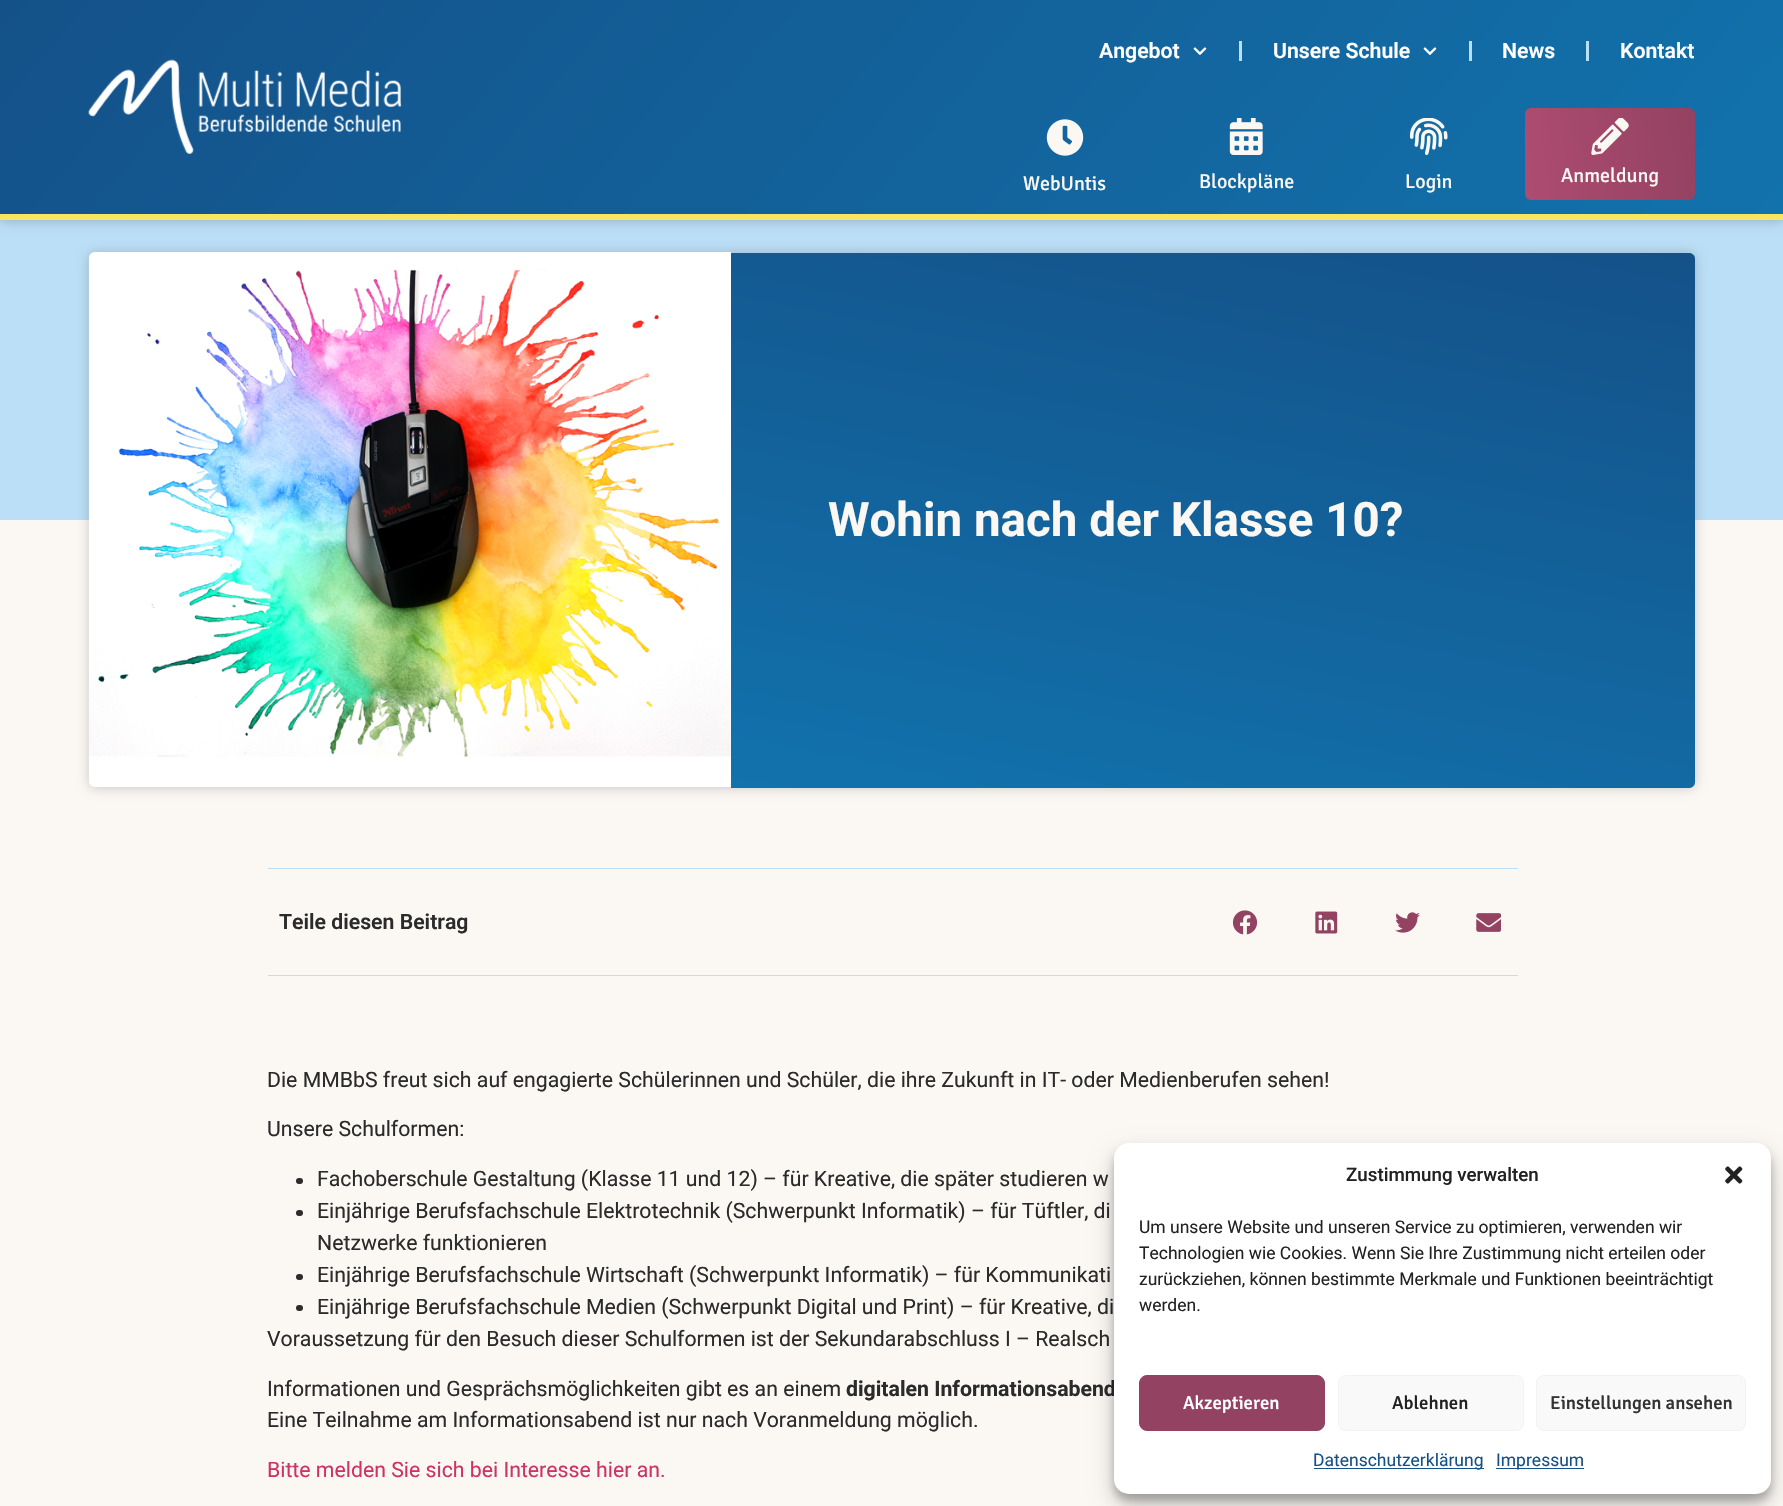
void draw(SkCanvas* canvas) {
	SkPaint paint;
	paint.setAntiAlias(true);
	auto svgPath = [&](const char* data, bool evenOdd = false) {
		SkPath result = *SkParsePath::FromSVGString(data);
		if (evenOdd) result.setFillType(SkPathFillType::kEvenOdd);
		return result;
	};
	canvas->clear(0xfffbf8f4);
	paint.setColor(0xffbbdff7);
	canvas->drawRect(SkRect::MakeXYWH(0, 220, 1783, 300), paint);
	paint.setColor(0x40000000);
	paint.setMaskFilter(SkMaskFilter::MakeBlur(kNormal_SkBlurStyle, 6));
	canvas->drawRect(SkRect::MakeXYWH(0, 0, 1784, 220), paint);
	paint.setMaskFilter(nullptr);
	{
		const SkColor colors[] = {0xff145189, 0xff1272ac};
		const float stops[] = {0, 1};
		const SkPoint ends[] = {{316, -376}, {1468, 590}};
		paint.setShader(SkGradientShader::MakeLinear(ends, colors, stops, 2, SkTileMode::kClamp));
		paint.setAlpha(255);
	}
	canvas->drawRect(SkRect::MakeXYWH(0, 0, 1783, 214), paint);
	paint.setShader(nullptr);
	paint.setColor(0xfffae561);
	canvas->drawRect(SkRect::MakeXYWH(0, 214, 1783, 6), paint);
	canvas->drawImageRect(SkImages::DeferredFromEncodedData(SkData::MakeFromFileName("img1.png")), SkRect::MakeXYWH(88, 59, 314, 95), SkSamplingOptions());
	SkFont f1(fontMgr->matchFamilyStyle("Roboto", SkFontStyle(600, SkFontStyle::kNormal_Width, SkFontStyle::kUpright_Slant)), 21.25);
	f1.setSubpixel(true);
	paint.setColor(0xffffffff);
	canvas->drawString("Angebot", 1099, 58, f1, paint);
	canvas->drawImageRect(SkImages::DeferredFromEncodedData(SkData::MakeFromFileName("img2.png")), SkRect::MakeXYWH(1193, 47, 14, 8), SkSamplingOptions());
	paint.setColor(0xffbbdff7);
	canvas->drawRect(SkRect::MakeXYWH(1239, 41, 3, 20), paint);
	paint.setColor(0xffffffff);
	canvas->drawString("Unsere Schule", 1273, 58, f1, paint);
	canvas->drawImageRect(SkImages::DeferredFromEncodedData(SkData::MakeFromFileName("img3.png")), SkRect::MakeXYWH(1423, 47, 14, 8), SkSamplingOptions());
	paint.setColor(0xffbbdff7);
	canvas->drawRect(SkRect::MakeXYWH(1469, 41, 3, 20), paint);
	paint.setColor(0xffffffff);
	canvas->drawString("News", 1502, 58, f1, paint);
	paint.setColor(0xffbbdff7);
	canvas->drawRect(SkRect::MakeXYWH(1586, 41, 3, 20), paint);
	paint.setColor(0xffffffff);
	canvas->drawString("Kontakt", 1620, 58, f1, paint);
	canvas->drawImageRect(SkImages::DeferredFromEncodedData(SkData::MakeFromFileName("img4.png")), SkRect::MakeXYWH(1046, 119, 38, 37), SkSamplingOptions());
	SkFont f2(fontMgr->matchFamilyStyle("Signika", SkFontStyle::Normal()), 20);
	f2.setSubpixel(true);
	paint.setColor(0xfffbf8f4);
	canvas->drawString("WebUntis", 1023, 190, f2, paint);
	canvas->drawImageRect(SkImages::DeferredFromEncodedData(SkData::MakeFromFileName("img5.png")), SkRect::MakeXYWH(1229, 118, 34, 37), SkSamplingOptions());
	canvas->drawString("Blockpläne", 1199, 188, f2, paint);
	canvas->drawImageRect(SkImages::DeferredFromEncodedData(SkData::MakeFromFileName("img6.png")), SkRect::MakeXYWH(1410, 118, 38, 37), SkSamplingOptions());
	canvas->drawString("Login", 1405, 188, f2, paint);
	{
		const SkColor colors[] = {0xff944261, 0xffad4c71};
		const float stops[] = {0, 1};
		const SkPoint ends[] = {{1699, 143}, {1521, 165}};
		paint.setShader(SkGradientShader::MakeLinear(ends, colors, stops, 2, SkTileMode::kClamp));
		paint.setAlpha(255);
	}
	canvas->drawRoundRect(SkRect::MakeXYWH(1525, 108, 170, 92), 6, 6, paint);
	canvas->drawImageRect(SkImages::DeferredFromEncodedData(SkData::MakeFromFileName("img7.png")), SkRect::MakeXYWH(1591, 118, 38, 37), SkSamplingOptions());
	paint.setShader(nullptr);
	paint.setColor(0xfffbf8f4);
	canvas->drawString("Anmeldung", 1561, 182, f2, paint);
	paint.setColor(0x33000000);
	paint.setMaskFilter(SkMaskFilter::MakeBlur(kNormal_SkBlurStyle, 6));
	canvas->drawRoundRect(SkRect::MakeXYWH(89, 253, 1606, 535), 6, 6, paint);
	paint.setMaskFilter(nullptr);
	canvas->drawImageRect(SkImages::DeferredFromEncodedData(SkData::MakeFromFileName("img8.png")), SkRect::MakeXYWH(88, 252, 644, 535), SkSamplingOptions());
	{
		const SkColor colors[] = {0xff145189, 0xff1272ac};
		const float stops[] = {0, 1};
		const SkPoint ends[] = {{1281, 172}, {1145, 868}};
		paint.setShader(SkGradientShader::MakeLinear(ends, colors, stops, 2, SkTileMode::kClamp));
		paint.setAlpha(255);
	}
	canvas->drawPath(svgPath("M731 253H1689C1692.5 253 1695 255.5 1695 259V782C1695 785.5 1692.5 788 1689 788H731Z"), paint);
	SkFont f3(fontMgr->matchFamilyStyle("Roboto", SkFontStyle::Bold()), 47.5);
	f3.setSubpixel(true);
	paint.setShader(nullptr);
	paint.setColor(0xfffbf8f4);
	canvas->drawString("Wohin nach der Klasse 10?", 828, 536, f3, paint);
	paint.setColor(0xffbbdff7);
	canvas->drawRect(SkRect::MakeXYWH(268, 868, 1250, 1), paint);
	canvas->drawRect(SkRect::MakeXYWH(268, 975, 1250, 1), paint);
	paint.setColor(0xff2b2b2b);
	canvas->drawString("Teile diesen Beitrag", 279, 929, f1, paint);
	canvas->drawImageRect(SkImages::DeferredFromEncodedData(SkData::MakeFromFileName("img9.png")), SkRect::MakeXYWH(1233, 910, 25, 25), SkSamplingOptions());
	canvas->drawImageRect(SkImages::DeferredFromEncodedData(SkData::MakeFromFileName("img10.png")), SkRect::MakeXYWH(1315, 911, 23, 23), SkSamplingOptions());
	canvas->drawImageRect(SkImages::DeferredFromEncodedData(SkData::MakeFromFileName("img11.png")), SkRect::MakeXYWH(1395, 912, 25, 21), SkSamplingOptions());
	canvas->drawImageRect(SkImages::DeferredFromEncodedData(SkData::MakeFromFileName("img12.png")), SkRect::MakeXYWH(1476, 913, 25, 19), SkSamplingOptions());
	SkFont f4(fontMgr->matchFamilyStyle("Roboto", SkFontStyle::Normal()), 21.25);
	f4.setSubpixel(true);
	canvas->drawString("Die MMBbS freut sich auf engagierte Schülerinnen und Schüler, die ihre Zukunft in IT- oder Medienberufen sehen!", 267, 1087, f4, paint);
	canvas->drawString("Unsere Schulformen:", 267, 1136, f4, paint);
	canvas->drawRoundRect(SkRect::MakeXYWH(296, 1178, 7, 6), 3, 3, paint);
	canvas->drawString("Fachoberschule Gestaltung (Klasse 11 und 12) – für Kreative, die später studieren w", 317, 1186, f4, paint);
	canvas->drawRoundRect(SkRect::MakeXYWH(296, 1210, 7, 6), 3, 3, paint);
	canvas->drawString("Einjährige Berufsfachschule Elektrotechnik (Schwerpunkt Informatik) – für Tüftler, di", 317, 1218, f4, paint);
	canvas->drawString("Netzwerke funktionieren", 317, 1250, f4, paint);
	canvas->drawRoundRect(SkRect::MakeXYWH(296, 1274, 7, 6), 3, 3, paint);
	canvas->drawString("Einjährige Berufsfachschule Wirtschaft (Schwerpunkt Informatik) – für Kommunikati", 317, 1282, f4, paint);
	canvas->drawRoundRect(SkRect::MakeXYWH(296, 1305, 7, 6), 3, 3, paint);
	canvas->drawString("Einjährige Berufsfachschule Medien (Schwerpunkt Digital und Print) – für Kreative, di", 317, 1314, f4, paint);
	canvas->drawString("Voraussetzung für den Besuch dieser Schulformen ist der Sekundarabschluss I – Realsch", 267, 1346, f4, paint);
	canvas->drawString("Informationen und Gesprächsmöglichkeiten gibt es an einem", 267, 1396, f4, paint);
	SkFont f5(fontMgr->matchFamilyStyle("Roboto", SkFontStyle::Bold()), 21.25);
	f5.setSubpixel(true);
	canvas->drawString("digitalen Informationsabend", 846, 1396, f5, paint);
	canvas->drawString("Eine Teilnahme am Informationsabend ist nur nach Voranmeldung möglich.", 267, 1427, f4, paint);
	paint.setColor(0xffcc3366);
	canvas->drawString("Bitte melden Sie sich bei Interesse hier an.", 267, 1477, f4, paint);
	paint.setColor(0x3b000000);
	paint.setMaskFilter(SkMaskFilter::MakeBlur(kNormal_SkBlurStyle, 4));
	canvas->drawRoundRect(SkRect::MakeXYWH(1114, 1150, 657, 351), 15, 15, paint);
	paint.setMaskFilter(nullptr);
	paint.setColor(0x30000000);
	paint.setMaskFilter(SkMaskFilter::MakeBlur(kNormal_SkBlurStyle, 12.5));
	canvas->drawRoundRect(SkRect::MakeXYWH(1114, 1155, 657, 351), 15, 15, paint);
	paint.setMaskFilter(nullptr);
	paint.setColor(0xffffffff);
	canvas->drawRoundRect(SkRect::MakeXYWH(1114, 1143, 657, 351), 15, 15, paint);
	SkFont f6(fontMgr->matchFamilyStyle("Roboto", SkFontStyle(500, SkFontStyle::kNormal_Width, SkFontStyle::kUpright_Slant)), 18.75);
	f6.setSubpixel(true);
	paint.setColor(0xff222222);
	canvas->drawString("Zustimmung verwalten", 1346, 1181, f6, paint);
	canvas->drawImageRect(SkImages::DeferredFromEncodedData(SkData::MakeFromFileName("img13.png")), SkRect::MakeXYWH(1725, 1166, 18, 18), SkSamplingOptions());
	SkFont f7(fontMgr->matchFamilyStyle("Roboto", SkFontStyle::Normal()), 17.5);
	f7.setSubpixel(true);
	canvas->drawString("Um unsere Website und unseren Service zu optimieren, verwenden wir", 1139, 1233, f7, paint);
	canvas->drawString("Technologien wie Cookies. Wenn Sie Ihre Zustimmung nicht erteilen oder", 1139, 1259, f7, paint);
	canvas->drawString("zurückziehen, können bestimmte Merkmale und Funktionen beeinträchtigt", 1139, 1285, f7, paint);
	canvas->drawString("werden.", 1139, 1311, f7, paint);
	paint.setColor(0xff944261);
	canvas->drawRoundRect(SkRect::MakeXYWH(1139.5, 1375.5, 185, 55), 7.5, 7.5, paint);
	paint.setStroke(true);
	paint.setStrokeWidth(1);
	canvas->drawRoundRect(SkRect::MakeXYWH(1139.5, 1375.5, 185, 55), 7.5, 7.5, paint);
	SkFont f8(fontMgr->matchFamilyStyle("Signika", SkFontStyle(500, SkFontStyle::kNormal_Width, SkFontStyle::kUpright_Slant)), 18.75);
	f8.setSubpixel(true);
	paint.setStroke(false);
	paint.setColor(0xffffffff);
	canvas->drawString("Akzeptieren", 1183, 1409, f8, paint);
	paint.setColor(0xfff9f9f9);
	canvas->drawRoundRect(SkRect::MakeXYWH(1338.5, 1375.5, 185, 55), 7.5, 7.5, paint);
	paint.setStroke(true);
	paint.setColor(0xfff2f2f2);
	canvas->drawRoundRect(SkRect::MakeXYWH(1338.5, 1375.5, 185, 55), 7.5, 7.5, paint);
	paint.setStroke(false);
	paint.setColor(0xff222222);
	canvas->drawString("Ablehnen", 1392, 1409, f8, paint);
	paint.setColor(0xfff9f9f9);
	canvas->drawRoundRect(SkRect::MakeXYWH(1536.5, 1375.5, 209, 55), 7.5, 7.5, paint);
	paint.setStroke(true);
	paint.setColor(0xfff2f2f2);
	canvas->drawRoundRect(SkRect::MakeXYWH(1536.5, 1375.5, 209, 55), 7.5, 7.5, paint);
	paint.setStroke(false);
	paint.setColor(0xff333333);
	canvas->drawString("Einstellungen ansehen", 1550, 1409, f8, paint);
	paint.setColor(0xff145189);
	canvas->drawRect(SkRect::MakeXYWH(1314, 1468, 170, 1), paint);
	canvas->drawString("Datenschutzerklärung", 1313, 1466, f7, paint);
	canvas->drawRect(SkRect::MakeXYWH(1496, 1468, 88, 1), paint);
	canvas->drawString("Impressum", 1496, 1466, f7, paint);
}
